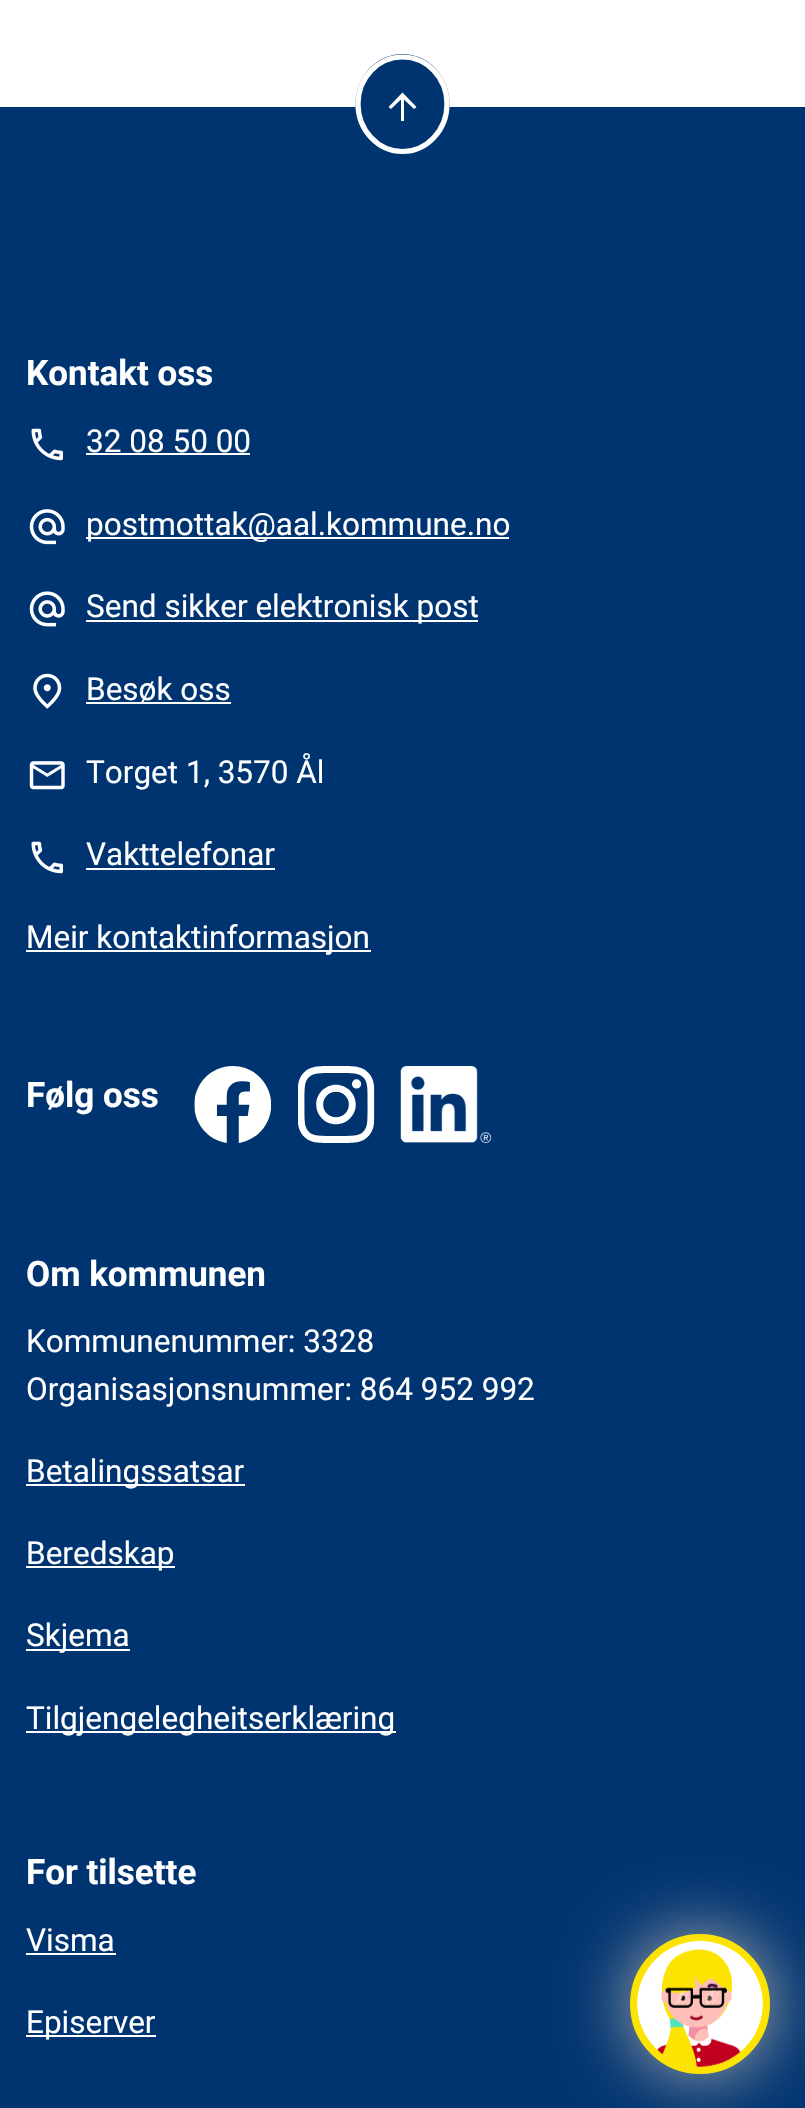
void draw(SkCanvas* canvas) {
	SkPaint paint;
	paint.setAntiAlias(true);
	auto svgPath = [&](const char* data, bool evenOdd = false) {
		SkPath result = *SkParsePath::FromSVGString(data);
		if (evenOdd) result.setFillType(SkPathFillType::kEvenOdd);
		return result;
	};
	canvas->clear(0xffffffff);
	paint.setColor(0xff003471);
	canvas->drawRect(SkRect::MakeXYWH(0, 107, 805, 2001), paint);
	canvas->drawOval(SkRect::MakeXYWH(355.5, 54, 94, 100), paint);
	paint.setStroke(true);
	paint.setStrokeWidth(5.2);
	paint.setColor(0xffffffff);
	canvas->drawPath(svgPath("M402.5 57C427 57 447 78 447 104C447 130 427 151.5 402.5 151.5C378 151.5 358 130 358 104C358 78 378 57 402.5 57Z"), paint);
	paint.setStroke(false);
	canvas->drawPath(svgPath("M388.5 107L391 109L401 99.5V121H404V99.5L414 109L416.5 107L402.5 92.5Z"), paint);
	SkFont f1(fontMgr->matchFamilyStyle("Roboto", SkFontStyle::Bold()), 35);
	f1.setSubpixel(true);
	canvas->drawString("Kontakt oss", 26, 385, f1, paint);
	canvas->drawImageRect(SkImages::DeferredFromEncodedData(SkData::MakeFromFileName("img1.png")), SkRect::MakeXYWH(31, 428, 32, 33), SkSamplingOptions());
	SkFont f2(fontMgr->matchFamilyStyle("Roboto", SkFontStyle::Normal()), 31.5);
	f2.setSubpixel(true);
	canvas->drawString("32 08 50 00", 86, 452, f2, paint);
	canvas->drawRect(SkRect::MakeXYWH(86, 453, 164, 2), paint);
	canvas->drawImageRect(SkImages::DeferredFromEncodedData(SkData::MakeFromFileName("img2.png")), SkRect::MakeXYWH(29, 509, 36, 36), SkSamplingOptions());
	canvas->drawRect(SkRect::MakeXYWH(86, 537, 423, 2), paint);
	canvas->drawString("postmottak@aal.kommune.no", 86, 535, f2, paint);
	canvas->drawImageRect(SkImages::DeferredFromEncodedData(SkData::MakeFromFileName("img3.png")), SkRect::MakeXYWH(29, 591, 36, 36), SkSamplingOptions());
	canvas->drawRect(SkRect::MakeXYWH(86, 620, 392, 2), paint);
	canvas->drawString("Send sikker elektronisk post", 86, 617, f2, paint);
	canvas->drawImageRect(SkImages::DeferredFromEncodedData(SkData::MakeFromFileName("img4.png")), SkRect::MakeXYWH(33, 673, 29, 36), SkSamplingOptions());
	canvas->drawRect(SkRect::MakeXYWH(86, 702, 145, 2), paint);
	canvas->drawString("Besøk oss", 86, 700, f2, paint);
	canvas->drawImageRect(SkImages::DeferredFromEncodedData(SkData::MakeFromFileName("img5.png")), SkRect::MakeXYWH(29, 761, 36, 29), SkSamplingOptions());
	canvas->drawString("Torget 1, 3570 Ål", 86, 783, f2, paint);
	canvas->drawImageRect(SkImages::DeferredFromEncodedData(SkData::MakeFromFileName("img1.png")), SkRect::MakeXYWH(31, 841, 32, 33), SkSamplingOptions());
	canvas->drawString("Vakttelefonar", 86, 865, f2, paint);
	canvas->drawRect(SkRect::MakeXYWH(86, 868, 189, 2), paint);
	canvas->drawRect(SkRect::MakeXYWH(26, 950, 345, 2), paint);
	canvas->drawString("Meir kontaktinformasjon", 26, 948, f2, paint);
	canvas->drawString("Følg oss", 26, 1107, f1, paint);
	canvas->drawImageRect(SkImages::DeferredFromEncodedData(SkData::MakeFromFileName("img6.png")), SkRect::MakeXYWH(194, 1066, 77, 77), SkSamplingOptions());
	canvas->drawImageRect(SkImages::DeferredFromEncodedData(SkData::MakeFromFileName("img7.png")), SkRect::MakeXYWH(298, 1066, 77, 77), SkSamplingOptions());
	canvas->drawImageRect(SkImages::DeferredFromEncodedData(SkData::MakeFromFileName("img8.png")), SkRect::MakeXYWH(400, 1066, 92, 77), SkSamplingOptions());
	canvas->drawString("Om kommunen", 26, 1286, f1, paint);
	canvas->drawString("Kommunenummer: 3328", 26, 1352, f2, paint);
	canvas->drawString("Organisasjonsnummer: 864 952 992", 26, 1400, f2, paint);
	canvas->drawRect(SkRect::MakeXYWH(26, 1484, 219, 2), paint);
	canvas->drawString("Betalingssatsar", 26, 1482, f2, paint);
	canvas->drawRect(SkRect::MakeXYWH(26, 1566, 149, 2), paint);
	canvas->drawString("Beredskap", 26, 1564, f2, paint);
	canvas->drawRect(SkRect::MakeXYWH(26, 1649, 104, 2), paint);
	canvas->drawString("Skjema", 26, 1646, f2, paint);
	canvas->drawRect(SkRect::MakeXYWH(26, 1731, 370, 2), paint);
	canvas->drawString("Tilgjengelegheitserklæring", 26, 1729, f2, paint);
	canvas->drawString("For tilsette", 26, 1884, f1, paint);
	canvas->drawString("Visma", 26, 1951, f2, paint);
	canvas->drawRect(SkRect::MakeXYWH(26, 1953, 90, 2), paint);
	canvas->drawRect(SkRect::MakeXYWH(26, 2035, 130, 2), paint);
	canvas->drawString("Episerver", 26, 2033, f2, paint);
	paint.setColor(0xffb3b3b3);
	paint.setMaskFilter(SkMaskFilter::MakeBlur(kNormal_SkBlurStyle, 35));
	canvas->drawRoundRect(SkRect::MakeXYWH(630, 1934, 140, 140), 70, 70, paint);
	paint.setMaskFilter(nullptr);
	paint.setColor(0xfffce300);
	canvas->drawCircle(700, 2004, 66.5, paint);
	paint.setStroke(true);
	paint.setStrokeWidth(7);
	canvas->drawCircle(700, 2004, 66.5, paint);
	canvas->drawImageRect(SkImages::DeferredFromEncodedData(SkData::MakeFromFileName("img9.png")), SkRect::MakeXYWH(637, 1940, 126, 127), SkSamplingOptions());
}
